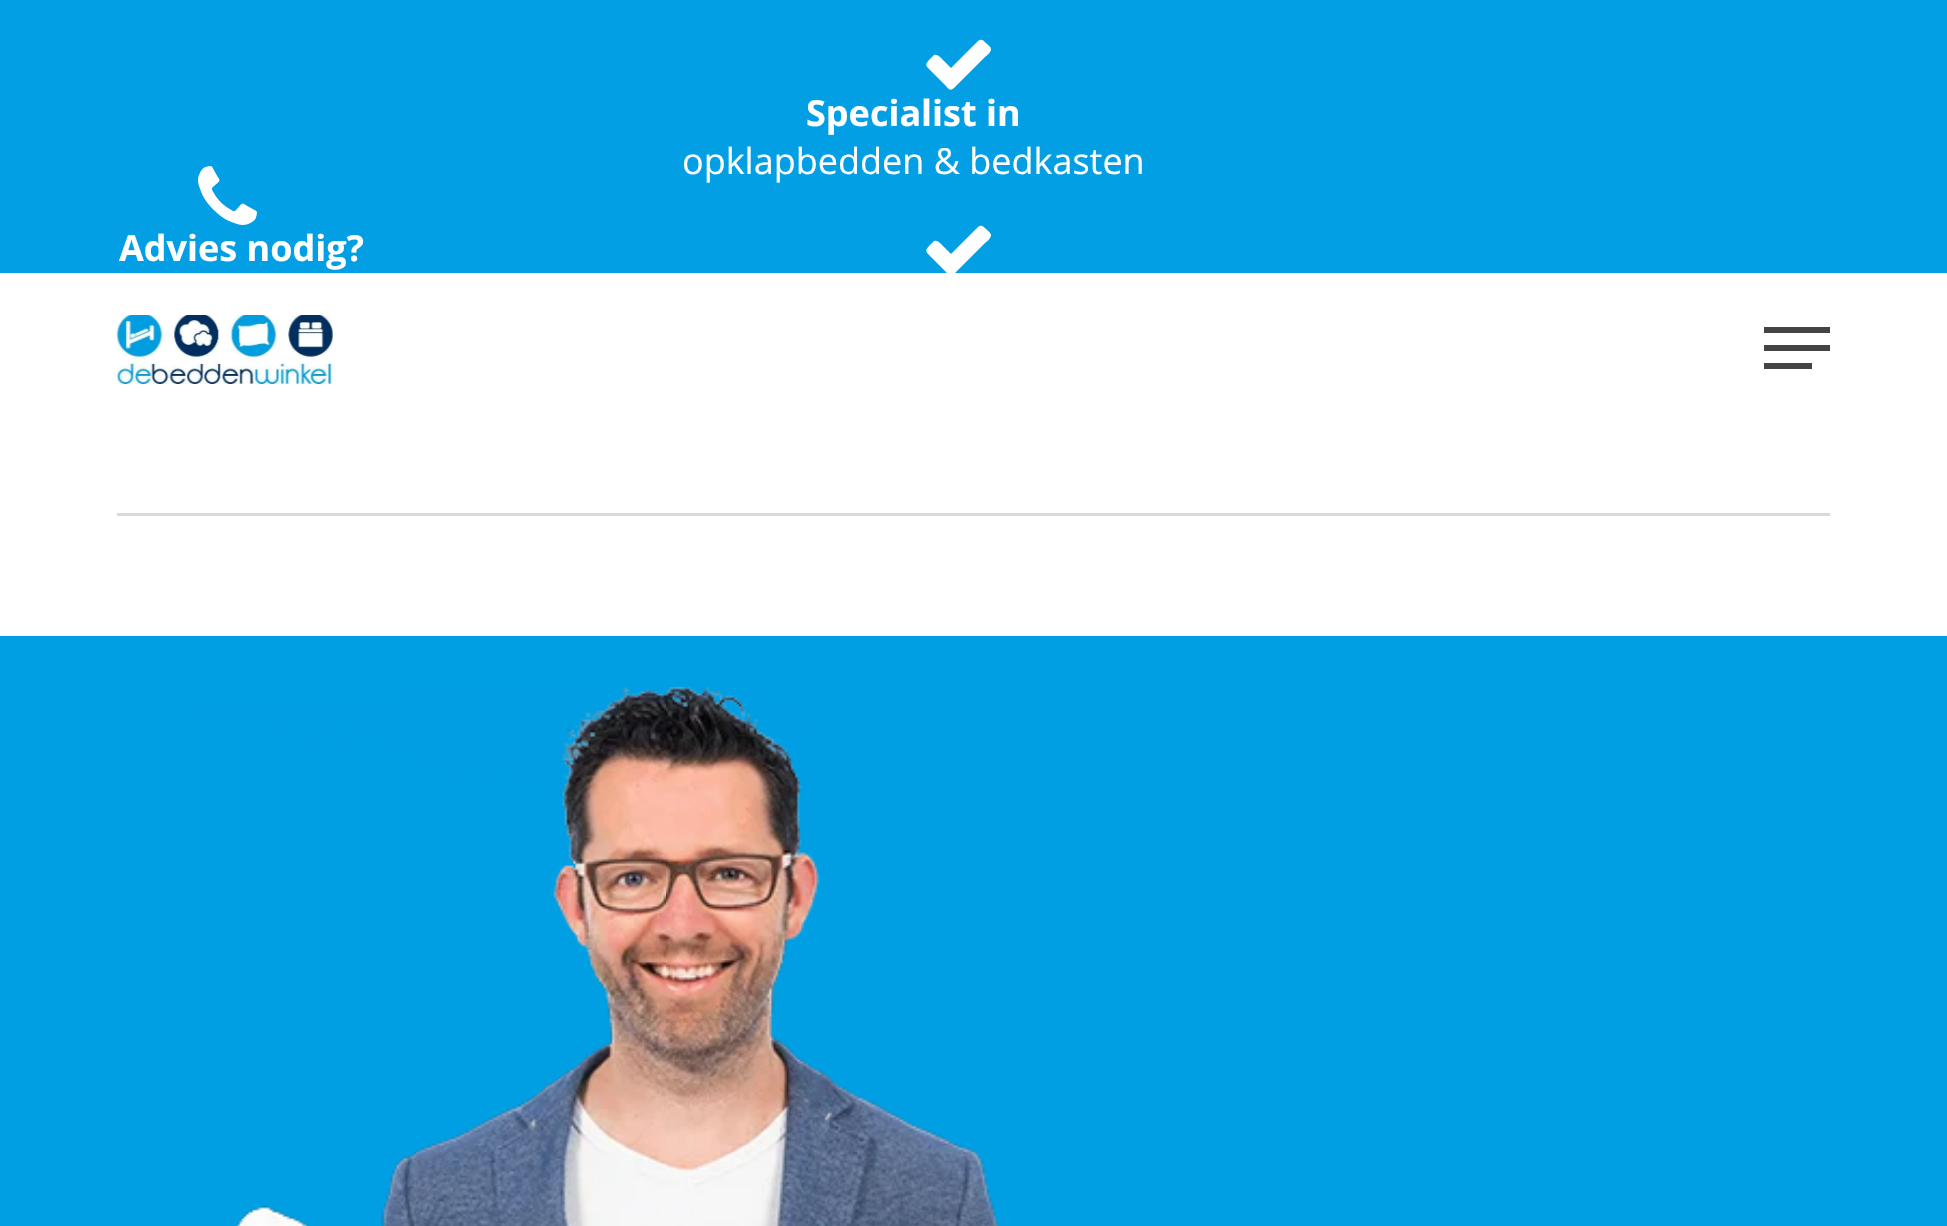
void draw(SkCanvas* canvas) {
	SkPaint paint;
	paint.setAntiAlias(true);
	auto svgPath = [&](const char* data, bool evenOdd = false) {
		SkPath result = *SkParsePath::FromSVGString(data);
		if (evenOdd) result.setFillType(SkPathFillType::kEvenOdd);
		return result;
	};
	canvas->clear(0xffffffff);
	paint.setColor(0xff029fe4);
	canvas->drawRect(SkRect::MakeXYWH(0, 0, 1947, 273), paint);
	paint.setColor(0xffffffff);
	canvas->drawPath(svgPath("M991 49C991 47 988 45 986 43C984 41 981 38 978 41L951 68L943 60C941 58 938 54 934 55L930 59C925 64 925 65 930 70L946 86C950 91 951 91 956 86L985 57C986 56 991 53 991 49Z"), paint);
	SkFont f1(fontMgr->matchFamilyStyle("Open Sans", SkFontStyle::Bold()), 36);
	f1.setSubpixel(true);
	canvas->drawString("Specialist in", 806, 126, f1, paint);
	SkFont f2(fontMgr->matchFamilyStyle("Open Sans", SkFontStyle::Normal()), 36);
	f2.setSubpixel(true);
	canvas->drawString("opklapbedden & bedkasten", 682, 174, f2, paint);
	canvas->drawPath(svgPath("M991 235C991 233 988 231 986 229C984 227 981 224 978 227L951 254L943 246C941 244 938 240 934 241L930 245C925 250 925 251 930 256L946 272C950 277 951 277 956 272L985 243C986 242 991 239 991 235Z"), paint);
	canvas->drawImageRect(SkImages::DeferredFromEncodedData(SkData::MakeFromFileName("img1.png")), SkRect::MakeXYWH(198, 166, 59, 59), SkSamplingOptions());
	canvas->drawString("Advies nodig?", 119, 261, f1, paint);
	canvas->drawImageRect(SkImages::DeferredFromEncodedData(SkData::MakeFromFileName("img2.png")), SkRect::MakeXYWH(116, 312, 217, 72), SkSamplingOptions());
	canvas->drawRect(SkRect::MakeXYWH(126, 312, 203, 3), paint);
	paint.setColor(0xff444444);
	canvas->drawRect(SkRect::MakeXYWH(1764, 327, 66, 6), paint);
	canvas->drawRect(SkRect::MakeXYWH(1764, 363, 48, 6), paint);
	canvas->drawRect(SkRect::MakeXYWH(1764, 345, 66, 6), paint);
	paint.setColor(0xffd9d9d9);
	canvas->drawRect(SkRect::MakeXYWH(117, 513, 1713, 3), paint);
	paint.setColor(0xff009fe3);
	canvas->drawRect(SkRect::MakeXYWH(0, 636, 1947, 590), paint);
	canvas->drawImageRect(SkImages::DeferredFromEncodedData(SkData::MakeFromFileName("img3.png")), SkRect::MakeXYWH(191, 687, 809, 539), SkSamplingOptions());
}
